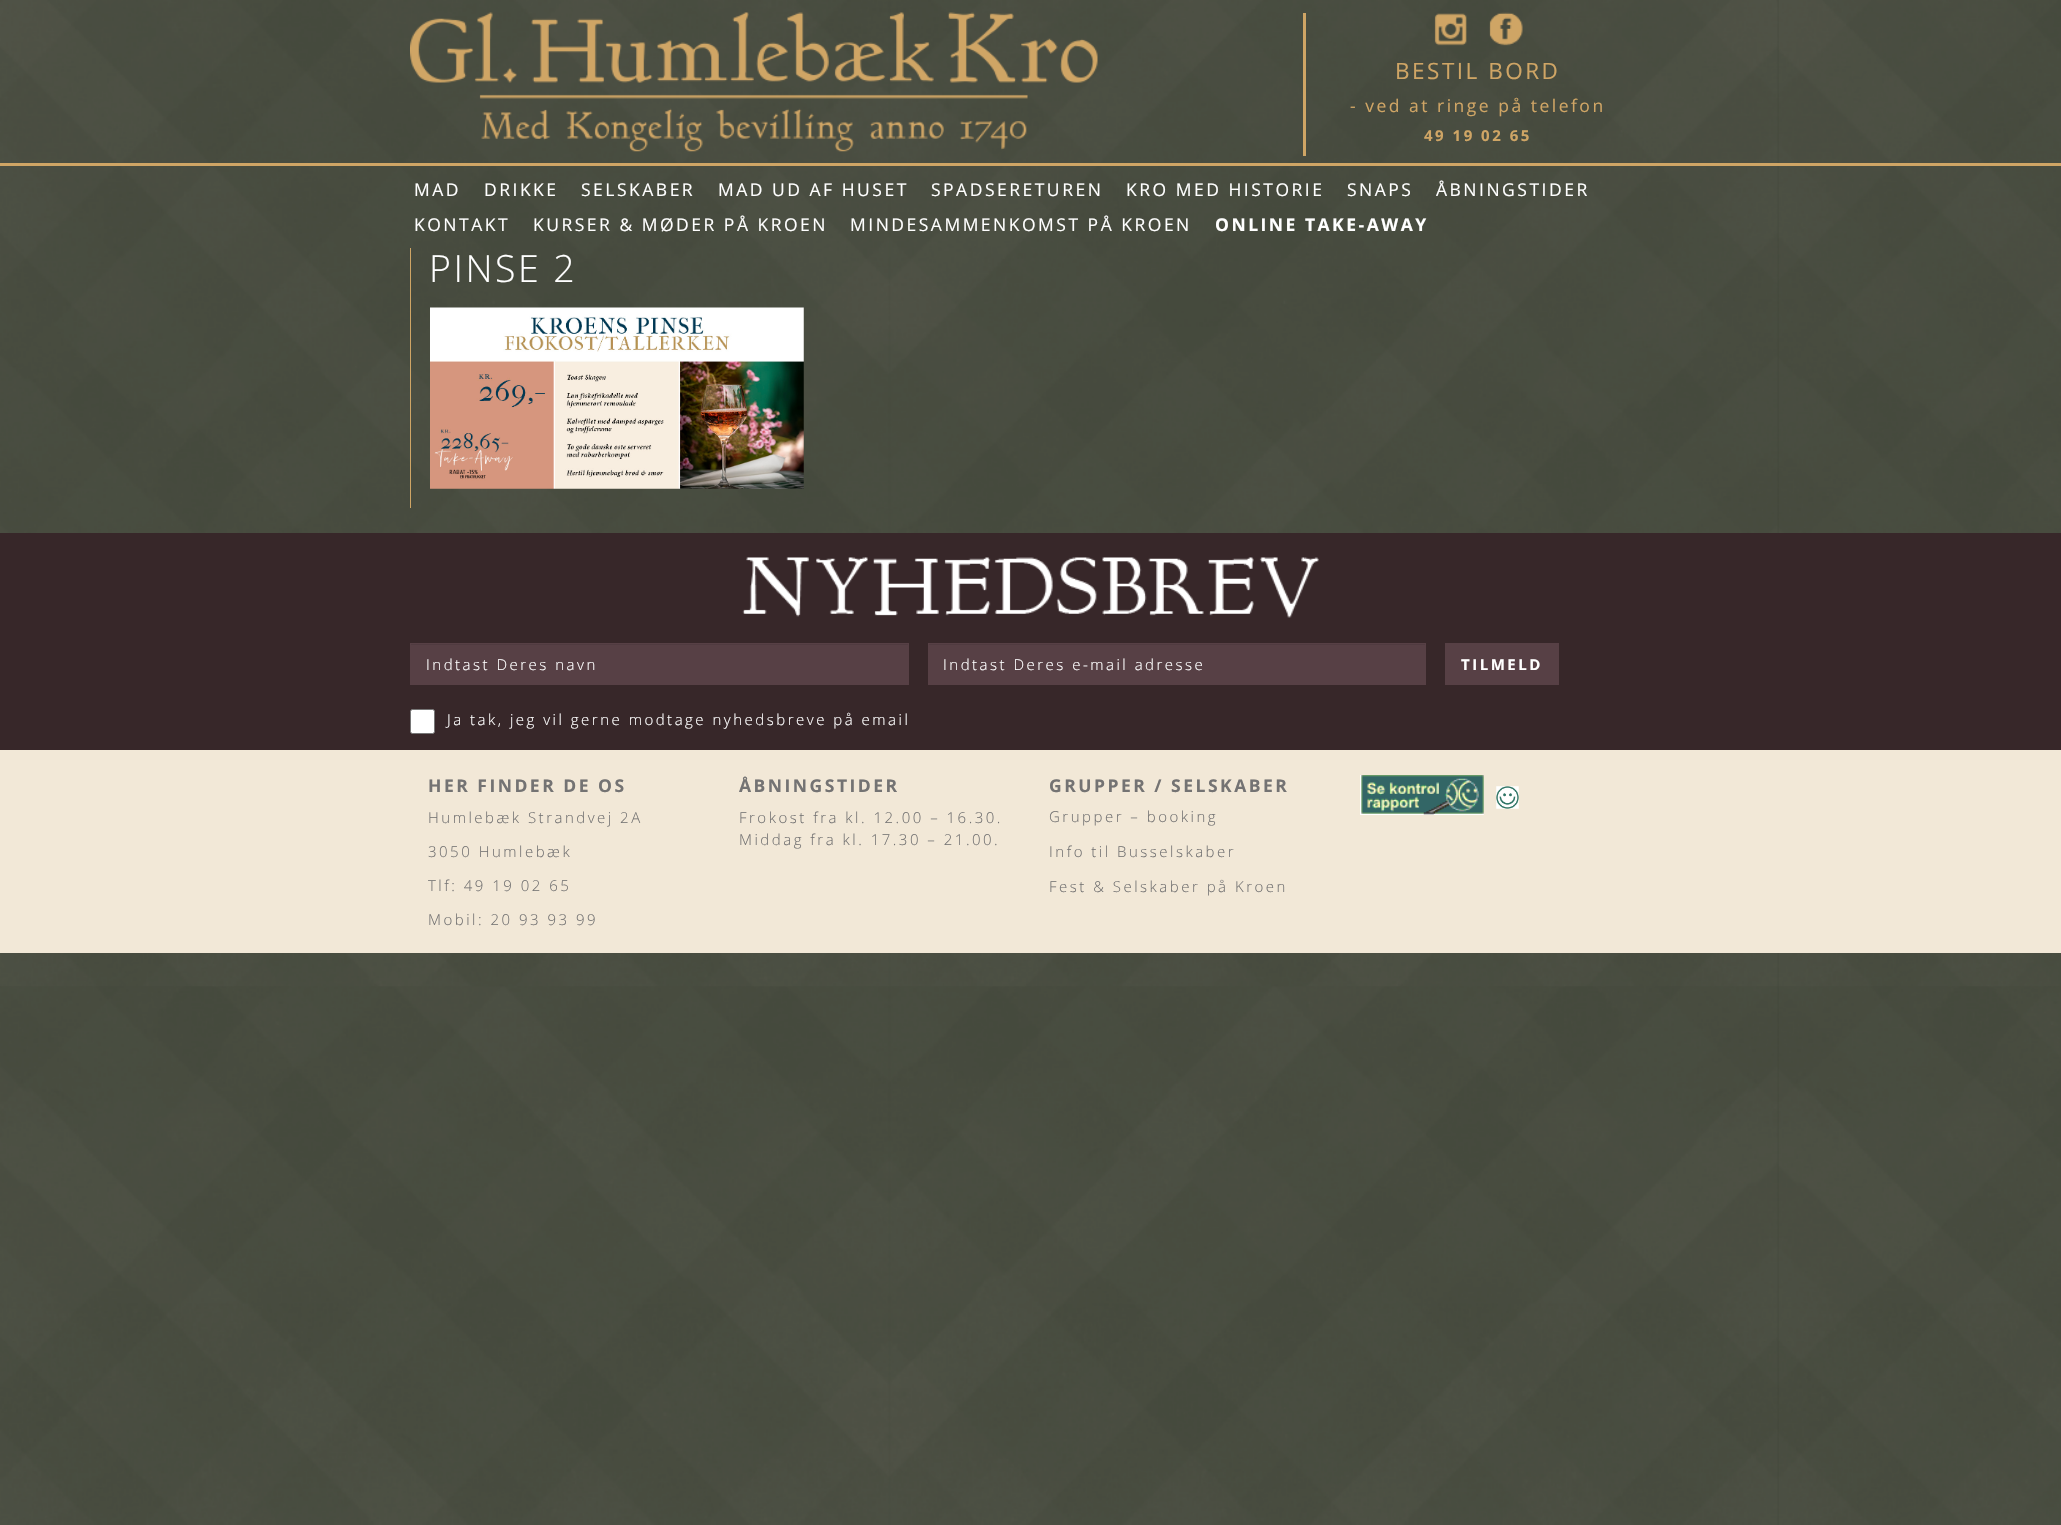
void draw(SkCanvas* canvas) {
	SkPaint paint;
	paint.setAntiAlias(true);
	auto spacedText = [&](const char* s, float x, float y, const SkFont& font, const SkPaint& ink, float letter, float word) {
		std::vector<SkGlyphID> glyphs(font.countText(s, strlen(s), SkTextEncoding::kUTF8));
		std::vector<float> xs(glyphs.size());
		font.textToGlyphs(s, strlen(s), SkTextEncoding::kUTF8, glyphs);
		font.getXPos(glyphs, xs, x);
		float extra = 0;
		for (size_t i = 0; i < glyphs.size(); i++) {
			xs[i] += extra;
			extra += letter + word * (glyphs[i] == font.unicharToGlyph(' '));
		}
		canvas->drawTextBlob(SkTextBlob::MakeFromPosHGlyphs(glyphs, xs, y, font), 0, 0, ink);
	};
	canvas->clear(0xffffffff);
	canvas->drawImageRect(SkImages::DeferredFromEncodedData(SkData::MakeFromFileName("img1.png")), SkRect::MakeXYWH(0, 0, 2061, 1525), SkSamplingOptions());
	paint.setColor(0xffcfa565);
	canvas->drawRect(SkRect::MakeXYWH(0, 163, 2061, 3), paint);
	canvas->drawImageRect(SkImages::DeferredFromEncodedData(SkData::MakeFromFileName("img2.png")), SkRect::MakeXYWH(410, 12, 688, 140), SkSamplingOptions());
	canvas->drawRect(SkRect::MakeXYWH(1303, 13, 3, 143), paint);
	canvas->drawImageRect(SkImages::DeferredFromEncodedData(SkData::MakeFromFileName("img3.png")), SkRect::MakeXYWH(1434, 13, 33, 33), SkSamplingOptions());
	canvas->drawImageRect(SkImages::DeferredFromEncodedData(SkData::MakeFromFileName("img4.png")), SkRect::MakeXYWH(1489, 12, 34, 34), SkSamplingOptions());
	SkFont f1(fontMgr->matchFamilyStyle("Open Sans", SkFontStyle::Normal()), 22.5);
	f1.setSubpixel(true);
	spacedText("BESTIL BORD", 1395, 79, f1, paint, 2.5, 0);
	SkFont f2(fontMgr->matchFamilyStyle("Open Sans", SkFontStyle::Normal()), 17.5);
	f2.setSubpixel(true);
	spacedText("- ved at ringe på telefon", 1350, 112, f2, paint, 2.5, 0);
	SkFont f3(fontMgr->matchFamilyStyle("Open Sans", SkFontStyle::Bold()), 15);
	f3.setSubpixel(true);
	spacedText("49 19 02 65", 1424, 141, f3, paint, 2.5, 0);
	paint.setColor(0xffffffff);
	spacedText("MAD", 414, 196, f2, paint, 2.5, 0);
	spacedText("DRIKKE", 484, 196, f2, paint, 2.5, 0);
	spacedText("SELSKABER", 581, 196, f2, paint, 2.5, 0);
	spacedText("MAD UD AF HUSET", 718, 196, f2, paint, 2.5, 0);
	spacedText("SPADSERETUREN", 931, 196, f2, paint, 2.5, 0);
	spacedText("KRO MED HISTORIE", 1126, 196, f2, paint, 2.5, 0);
	spacedText("SNAPS", 1347, 196, f2, paint, 2.5, 0);
	spacedText("ÅBNINGSTIDER", 1436, 196, f2, paint, 2.5, 0);
	spacedText("KONTAKT", 414, 231, f2, paint, 2.5, 0);
	spacedText("KURSER & MØDER PÅ KROEN", 533, 231, f2, paint, 2.5, 0);
	spacedText("MINDESAMMENKOMST PÅ KROEN", 850, 231, f2, paint, 2.5, 0);
	SkFont f4(fontMgr->matchFamilyStyle("Open Sans", SkFontStyle::Bold()), 17.5);
	f4.setSubpixel(true);
	spacedText("ONLINE TAKE-AWAY", 1215, 231, f4, paint, 2.5, 0);
	paint.setColor(0xffcfa565);
	canvas->drawRect(SkRect::MakeXYWH(410, 248, 1, 260), paint);
	SkFont f5(fontMgr->matchFamilyStyle("Open Sans", SkFontStyle(300, SkFontStyle::kNormal_Width, SkFontStyle::kUpright_Slant)), 37.5);
	f5.setSubpixel(true);
	paint.setColor(0xffffffff);
	spacedText("PINSE 2", 429, 282, f5, paint, 2.5, 0);
	canvas->drawImageRect(SkImages::DeferredFromEncodedData(SkData::MakeFromFileName("img5.png")), SkRect::MakeXYWH(430, 307, 374, 182), SkSamplingOptions());
	paint.setColor(0xff372729);
	canvas->drawRect(SkRect::MakeXYWH(0, 533, 2061, 217), paint);
	canvas->drawImageRect(SkImages::DeferredFromEncodedData(SkData::MakeFromFileName("img6.png")), SkRect::MakeXYWH(742, 557, 577, 61), SkSamplingOptions());
	paint.setColor(0xff574045);
	canvas->drawRect(SkRect::MakeXYWH(410, 643, 499, 42), paint);
	paint.setColor(0xff503b40);
	canvas->drawRect(SkRect::MakeXYWH(411, 644, 497, 1), paint);
	SkFont f6(fontMgr->matchFamilyStyle("Open Sans", SkFontStyle(300, SkFontStyle::kNormal_Width, SkFontStyle::kUpright_Slant)), 15);
	f6.setSubpixel(true);
	paint.setColor(0xffffffff);
	spacedText("Indtast Deres navn", 426, 670, f6, paint, 2.5, 0);
	paint.setColor(0xff574045);
	canvas->drawRect(SkRect::MakeXYWH(928, 643, 498, 42), paint);
	paint.setColor(0xff503b40);
	canvas->drawRect(SkRect::MakeXYWH(929, 644, 496, 1), paint);
	paint.setColor(0xffffffff);
	spacedText("Indtast Deres e-mail adresse", 943, 670, f6, paint, 2.5, 0);
	paint.setColor(0xff574045);
	canvas->drawRect(SkRect::MakeXYWH(1445, 643, 114, 42), paint);
	paint.setColor(0xffffffff);
	spacedText("TILMELD", 1461, 670, f3, paint, 2.5, 0);
	canvas->drawRoundRect(SkRect::MakeXYWH(410.5, 709.5, 24, 24), 2, 2, paint);
	paint.setStroke(true);
	paint.setStrokeWidth(1);
	paint.setColor(0xff767676);
	canvas->drawRoundRect(SkRect::MakeXYWH(410.5, 709.5, 24, 24), 2, 2, paint);
	paint.setStroke(false);
	paint.setColor(0xffffffff);
	spacedText("Ja tak, jeg vil gerne modtage nyhedsbreve på email", 447, 725, f6, paint, 2.5, 0);
	paint.setColor(0xfff2e8d7);
	canvas->drawRect(SkRect::MakeXYWH(0, 750, 2061, 203), paint);
	paint.setColor(0xff747373);
	spacedText("HER FINDER DE OS", 428, 792, f4, paint, 2.5, 0);
	spacedText("Humlebæk Strandvej 2A", 428, 823, f6, paint, 2.5, 0);
	spacedText("3050 Humlebæk", 428, 857, f6, paint, 2.5, 0);
	spacedText("Tlf: 49 19 02 65", 428, 891, f6, paint, 2.5, 0);
	spacedText("Mobil: 20 93 93 99", 428, 925, f6, paint, 2.5, 0);
	spacedText("ÅBNINGSTIDER", 739, 792, f4, paint, 2.5, 0);
	spacedText("Frokost fra kl. 12.00 – 16.30.", 739, 823, f6, paint, 2.5, 0);
	spacedText("Middag fra kl. 17.30 – 21.00.", 739, 845, f6, paint, 2.5, 0);
	spacedText("GRUPPER / SELSKABER", 1049, 792, f4, paint, 2.5, 0);
	spacedText("Grupper – booking", 1049, 822, f6, paint, 2.5, 0);
	spacedText("Info til Busselskaber", 1049, 857, f6, paint, 2.5, 0);
	spacedText("Fest & Selskaber på Kroen", 1049, 892, f6, paint, 2.5, 0);
	canvas->drawImageRect(SkImages::DeferredFromEncodedData(SkData::MakeFromFileName("img7.png")), SkRect::MakeXYWH(1360, 775, 124, 40), SkSamplingOptions());
	canvas->drawImageRect(SkImages::DeferredFromEncodedData(SkData::MakeFromFileName("img8.png")), SkRect::MakeXYWH(1496, 786, 23, 23), SkSamplingOptions());
}
